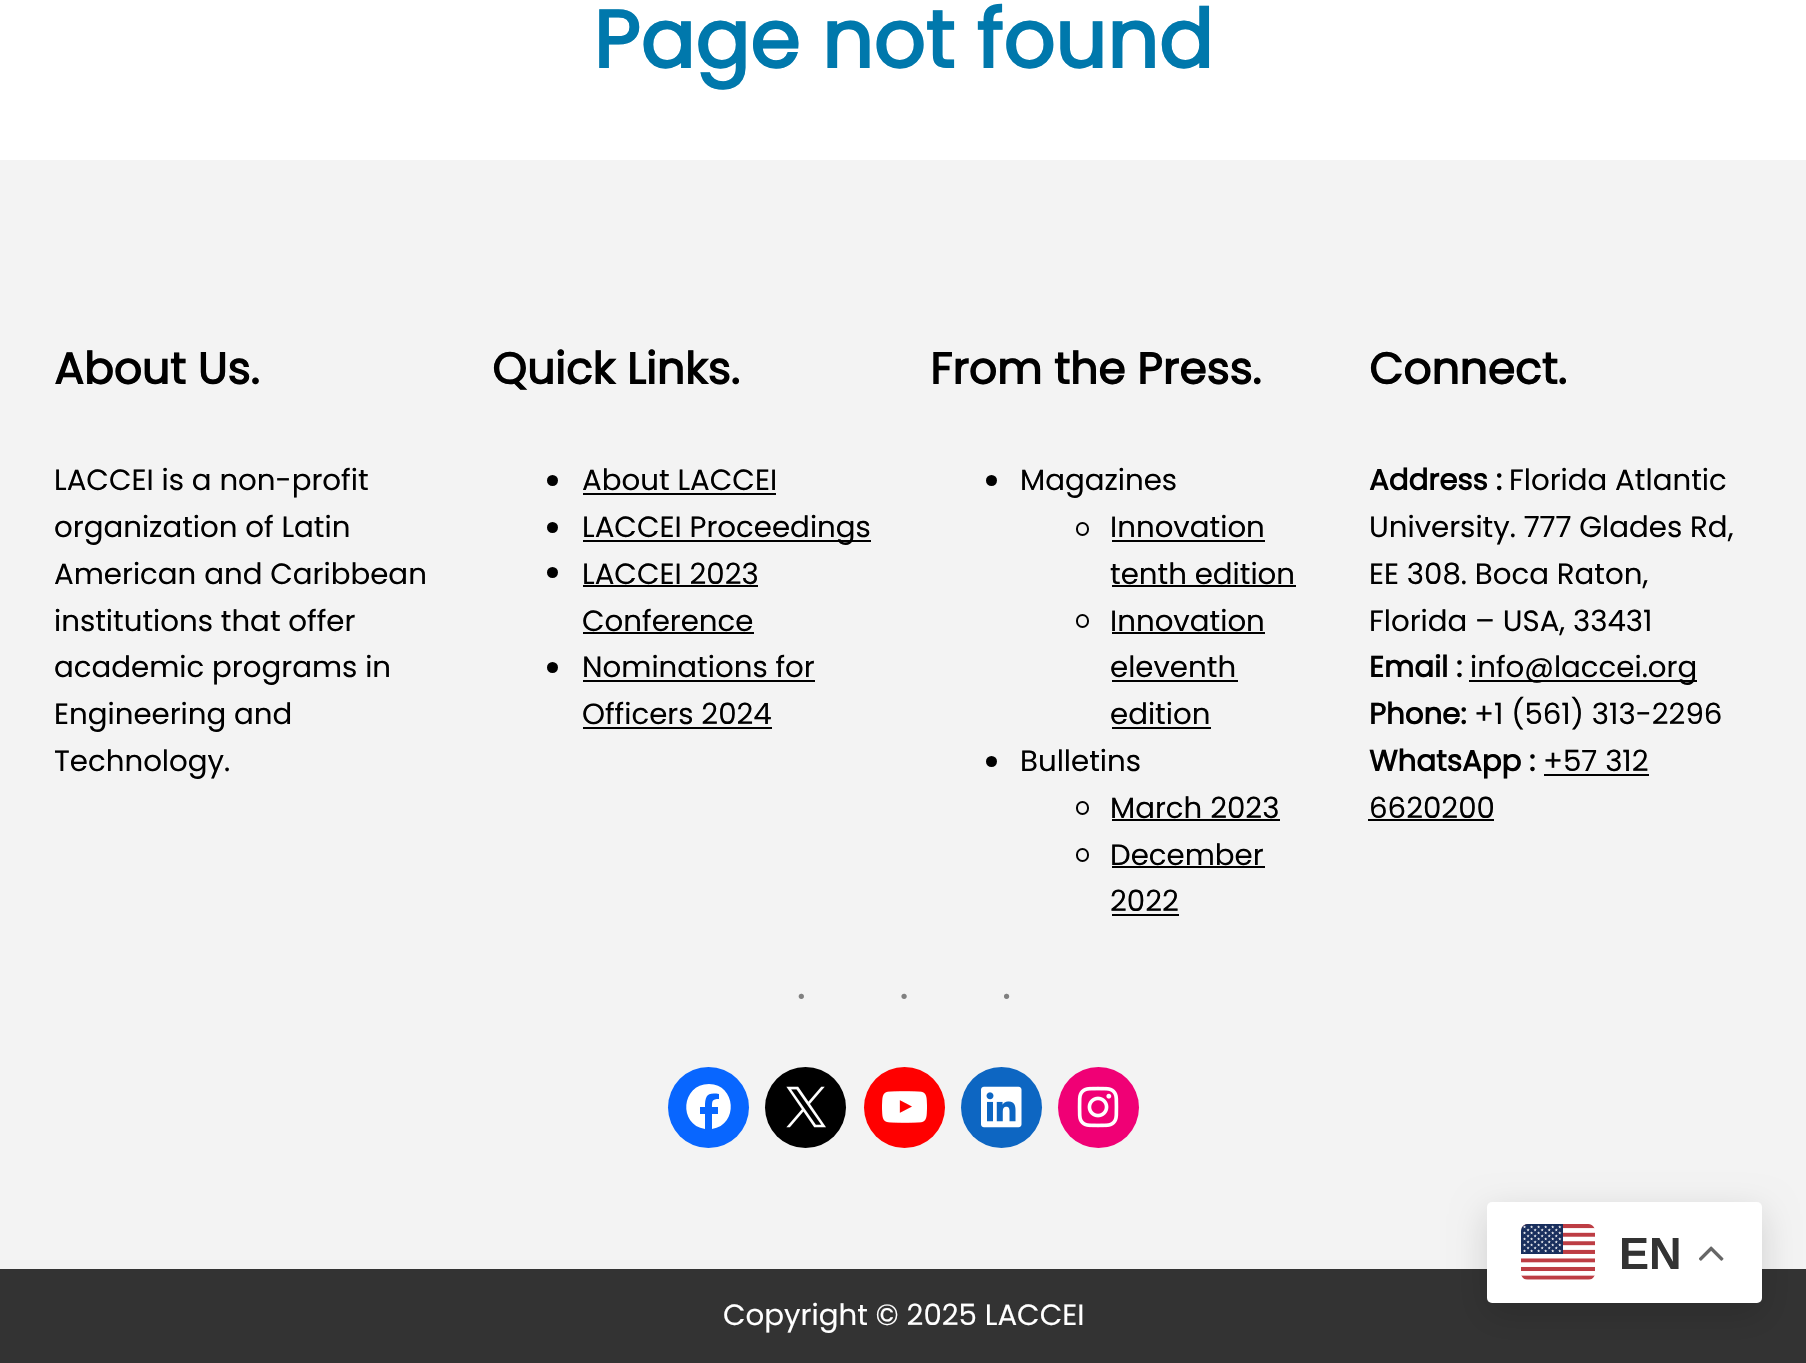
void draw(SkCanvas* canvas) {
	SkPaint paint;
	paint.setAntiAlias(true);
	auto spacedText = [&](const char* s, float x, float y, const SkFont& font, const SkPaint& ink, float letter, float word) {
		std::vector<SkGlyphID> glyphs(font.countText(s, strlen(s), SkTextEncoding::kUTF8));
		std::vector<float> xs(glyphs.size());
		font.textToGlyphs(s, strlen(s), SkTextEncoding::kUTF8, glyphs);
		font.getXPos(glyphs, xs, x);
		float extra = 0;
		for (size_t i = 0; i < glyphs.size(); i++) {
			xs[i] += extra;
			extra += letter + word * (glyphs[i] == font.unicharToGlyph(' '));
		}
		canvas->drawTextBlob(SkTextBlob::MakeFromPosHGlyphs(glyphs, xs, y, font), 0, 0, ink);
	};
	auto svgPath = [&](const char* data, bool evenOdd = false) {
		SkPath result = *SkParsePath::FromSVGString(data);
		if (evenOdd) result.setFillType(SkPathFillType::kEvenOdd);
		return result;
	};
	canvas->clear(0xffffffff);
	SkFont f1(fontMgr->matchFamilyStyle("Poppins", SkFontStyle::Bold()), 81);
	f1.setSubpixel(true);
	paint.setColor(0xff0078ac);
	canvas->drawString("Page not found", 593, 68, f1, paint);
	paint.setColor(0xfff3f3f3);
	canvas->drawRect(SkRect::MakeXYWH(0, 160, 1806, 1109), paint);
	SkFont f2(fontMgr->matchFamilyStyle("Poppins", SkFontStyle::Bold()), 44);
	f2.setSubpixel(true);
	paint.setColor(0xff000000);
	canvas->drawString("About Us.", 54, 384, f2, paint);
	SkFont f3(fontMgr->matchFamilyStyle("Poppins", SkFontStyle::Normal()), 29.25);
	f3.setSubpixel(true);
	canvas->drawString("LACCEI is a non-profit", 54, 490, f3, paint);
	canvas->drawString("organization of Latin", 54, 537, f3, paint);
	canvas->drawString("American and Caribbean", 54, 584, f3, paint);
	canvas->drawString("institutions that offer", 54, 631, f3, paint);
	canvas->drawString("academic programs in", 54, 677, f3, paint);
	canvas->drawString("Engineering and", 54, 724, f3, paint);
	canvas->drawString("Technology.", 54, 771, f3, paint);
	canvas->drawString("Quick Links.", 492, 384, f2, paint);
	canvas->drawCircle(552.5, 480.5, 5.5, paint);
	canvas->drawString("About LACCEI", 582, 490, f3, paint);
	canvas->drawRect(SkRect::MakeXYWH(583, 493, 193, 2), paint);
	canvas->drawCircle(552.5, 527.5, 5.5, paint);
	canvas->drawRect(SkRect::MakeXYWH(583, 540, 288, 2), paint);
	canvas->drawString("LACCEI Proceedings", 582, 537, f3, paint);
	canvas->drawCircle(552.5, 572.5, 5.5, paint);
	canvas->drawString("LACCEI 2023", 582, 584, f3, paint);
	canvas->drawRect(SkRect::MakeXYWH(583, 585, 175, 2), paint);
	canvas->drawString("Conference", 582, 631, f3, paint);
	canvas->drawRect(SkRect::MakeXYWH(583, 632, 171, 2), paint);
	canvas->drawCircle(552.5, 667.5, 5.5, paint);
	canvas->drawString("Nominations for", 582, 677, f3, paint);
	canvas->drawRect(SkRect::MakeXYWH(583, 680, 232, 2), paint);
	canvas->drawString("Officers 2024", 582, 724, f3, paint);
	canvas->drawRect(SkRect::MakeXYWH(583, 727, 189, 2), paint);
	canvas->drawString("From the Press.", 930, 384, f2, paint);
	canvas->drawCircle(991.5, 480.5, 5.5, paint);
	canvas->drawString("Magazines", 1020, 490, f3, paint);
	paint.setStroke(true);
	paint.setStrokeWidth(2);
	canvas->drawRoundRect(SkRect::MakeXYWH(1077, 523, 11, 12), 5.5, 5.5, paint);
	paint.setStroke(false);
	canvas->drawString("Innovation", 1110, 537, f3, paint);
	canvas->drawRect(SkRect::MakeXYWH(1112, 540, 153, 2), paint);
	canvas->drawString("tenth edition", 1110, 584, f3, paint);
	canvas->drawRect(SkRect::MakeXYWH(1112, 585, 184, 2), paint);
	paint.setStroke(true);
	canvas->drawRoundRect(SkRect::MakeXYWH(1077, 615, 11, 12), 5.5, 5.5, paint);
	paint.setStroke(false);
	canvas->drawString("Innovation", 1110, 631, f3, paint);
	canvas->drawRect(SkRect::MakeXYWH(1112, 632, 153, 2), paint);
	canvas->drawString("eleventh", 1110, 677, f3, paint);
	canvas->drawRect(SkRect::MakeXYWH(1112, 680, 126, 2), paint);
	canvas->drawString("edition", 1110, 724, f3, paint);
	canvas->drawRect(SkRect::MakeXYWH(1112, 727, 99, 2), paint);
	canvas->drawCircle(991.5, 761.5, 5.5, paint);
	canvas->drawString("Bulletins", 1020, 771, f3, paint);
	paint.setStroke(true);
	canvas->drawRoundRect(SkRect::MakeXYWH(1077, 802, 11, 12), 5.5, 5.5, paint);
	paint.setStroke(false);
	canvas->drawString("March 2023", 1110, 818, f3, paint);
	canvas->drawRect(SkRect::MakeXYWH(1112, 819, 168, 2), paint);
	paint.setStroke(true);
	canvas->drawRoundRect(SkRect::MakeXYWH(1077, 849, 11, 12), 5.5, 5.5, paint);
	paint.setStroke(false);
	canvas->drawString("December", 1110, 865, f3, paint);
	canvas->drawRect(SkRect::MakeXYWH(1112, 866, 153, 2), paint);
	canvas->drawString("2022", 1110, 911, f3, paint);
	canvas->drawRect(SkRect::MakeXYWH(1112, 914, 67, 2), paint);
	canvas->drawString("Connect.", 1369, 384, f2, paint);
	SkFont f4(fontMgr->matchFamilyStyle("Poppins", SkFontStyle::Bold()), 29.25);
	f4.setSubpixel(true);
	canvas->drawString("Address :", 1369, 490, f4, paint);
	canvas->drawString("Florida Atlantic", 1509, 490, f3, paint);
	canvas->drawString("University. 777 Glades Rd,", 1369, 537, f3, paint);
	canvas->drawString("EE 308. Boca Raton,", 1369, 584, f3, paint);
	canvas->drawString("Florida – USA, 33431", 1369, 631, f3, paint);
	canvas->drawString("Email :", 1369, 677, f4, paint);
	canvas->drawRect(SkRect::MakeXYWH(1469, 680, 228, 2), paint);
	canvas->drawString("info@laccei.org", 1470, 677, f3, paint);
	canvas->drawString("Phone:", 1369, 724, f4, paint);
	canvas->drawString("+1 (561) 313-2296", 1474, 724, f3, paint);
	canvas->drawString("WhatsApp :", 1369, 771, f4, paint);
	canvas->drawString("+57 312", 1543, 771, f3, paint);
	canvas->drawRect(SkRect::MakeXYWH(1544, 774, 105, 2), paint);
	canvas->drawString("6620200", 1369, 818, f3, paint);
	canvas->drawRect(SkRect::MakeXYWH(1368, 819, 126, 2), paint);
	SkFont f5(fontMgr->matchFamilyStyle("Liberation Serif", SkFontStyle::Normal()), 44);
	f5.setSubpixel(true);
	paint.setColor(0xff808080);
	spacedText("···", 794, 1011, f5, paint, 88, 0);
	paint.setColor(0xff0866ff);
	canvas->drawCircle(708.5, 1107.5, 40.5, paint);
	paint.setColor(0xffffffff);
	canvas->drawPath(svgPath("M709 1084C681 1084 678 1125 705 1129V1114H700V1107H705C705 1096 707 1092 719 1094V1099C712 1099 712 1101 712 1107H718V1114H712V1129C739 1125 736 1084 709 1084Z"), paint);
	paint.setColor(0xff000000);
	canvas->drawCircle(805.5, 1107.5, 40.5, paint);
	canvas->drawImageRect(SkImages::DeferredFromEncodedData(SkData::MakeFromFileName("img1.png")), SkRect::MakeXYWH(786, 1086, 40, 42), SkSamplingOptions());
	paint.setColor(0xffff0000);
	canvas->drawCircle(904.5, 1107.5, 40.5, paint);
	canvas->drawImageRect(SkImages::DeferredFromEncodedData(SkData::MakeFromFileName("img2.png")), SkRect::MakeXYWH(882, 1091, 45, 32), SkSamplingOptions());
	paint.setColor(0xff0d66c2);
	canvas->drawCircle(1001.5, 1107.5, 40.5, paint);
	canvas->drawImageRect(SkImages::DeferredFromEncodedData(SkData::MakeFromFileName("img3.png")), SkRect::MakeXYWH(981, 1086, 41, 42), SkSamplingOptions());
	paint.setColor(0xfff00075);
	canvas->drawCircle(1098.5, 1107.5, 40.5, paint);
	canvas->drawImageRect(SkImages::DeferredFromEncodedData(SkData::MakeFromFileName("img4.png")), SkRect::MakeXYWH(1077, 1086, 42, 42), SkSamplingOptions());
	paint.setColor(0xff333333);
	canvas->drawRect(SkRect::MakeXYWH(0, 1269, 1806, 94), paint);
	paint.setColor(0xffffffff);
	canvas->drawString("Copyright © 2025 LACCEI", 723, 1325, f3, paint);
	paint.setColor(0x26000000);
	paint.setMaskFilter(SkMaskFilter::MakeBlur(kNormal_SkBlurStyle, 17));
	canvas->drawRoundRect(SkRect::MakeXYWH(1487, 1213, 275, 101), 5, 5, paint);
	paint.setMaskFilter(nullptr);
	paint.setColor(0xffffffff);
	canvas->drawRoundRect(SkRect::MakeXYWH(1487, 1202, 275, 101), 5, 5, paint);
	canvas->drawImageRect(SkImages::DeferredFromEncodedData(SkData::MakeFromFileName("img5.png")), SkRect::MakeXYWH(1521, 1224, 74, 56), SkSamplingOptions());
	SkFont f6(fontMgr->matchFamilyStyle("Liberation Sans", SkFontStyle::Bold()), 45);
	f6.setSubpixel(true);
	paint.setColor(0xff333333);
	canvas->drawString("EN", 1619, 1269, f6, paint);
	canvas->drawImageRect(SkImages::DeferredFromEncodedData(SkData::MakeFromFileName("img6.png")), SkRect::MakeXYWH(1699, 1246, 25, 15), SkSamplingOptions());
}
